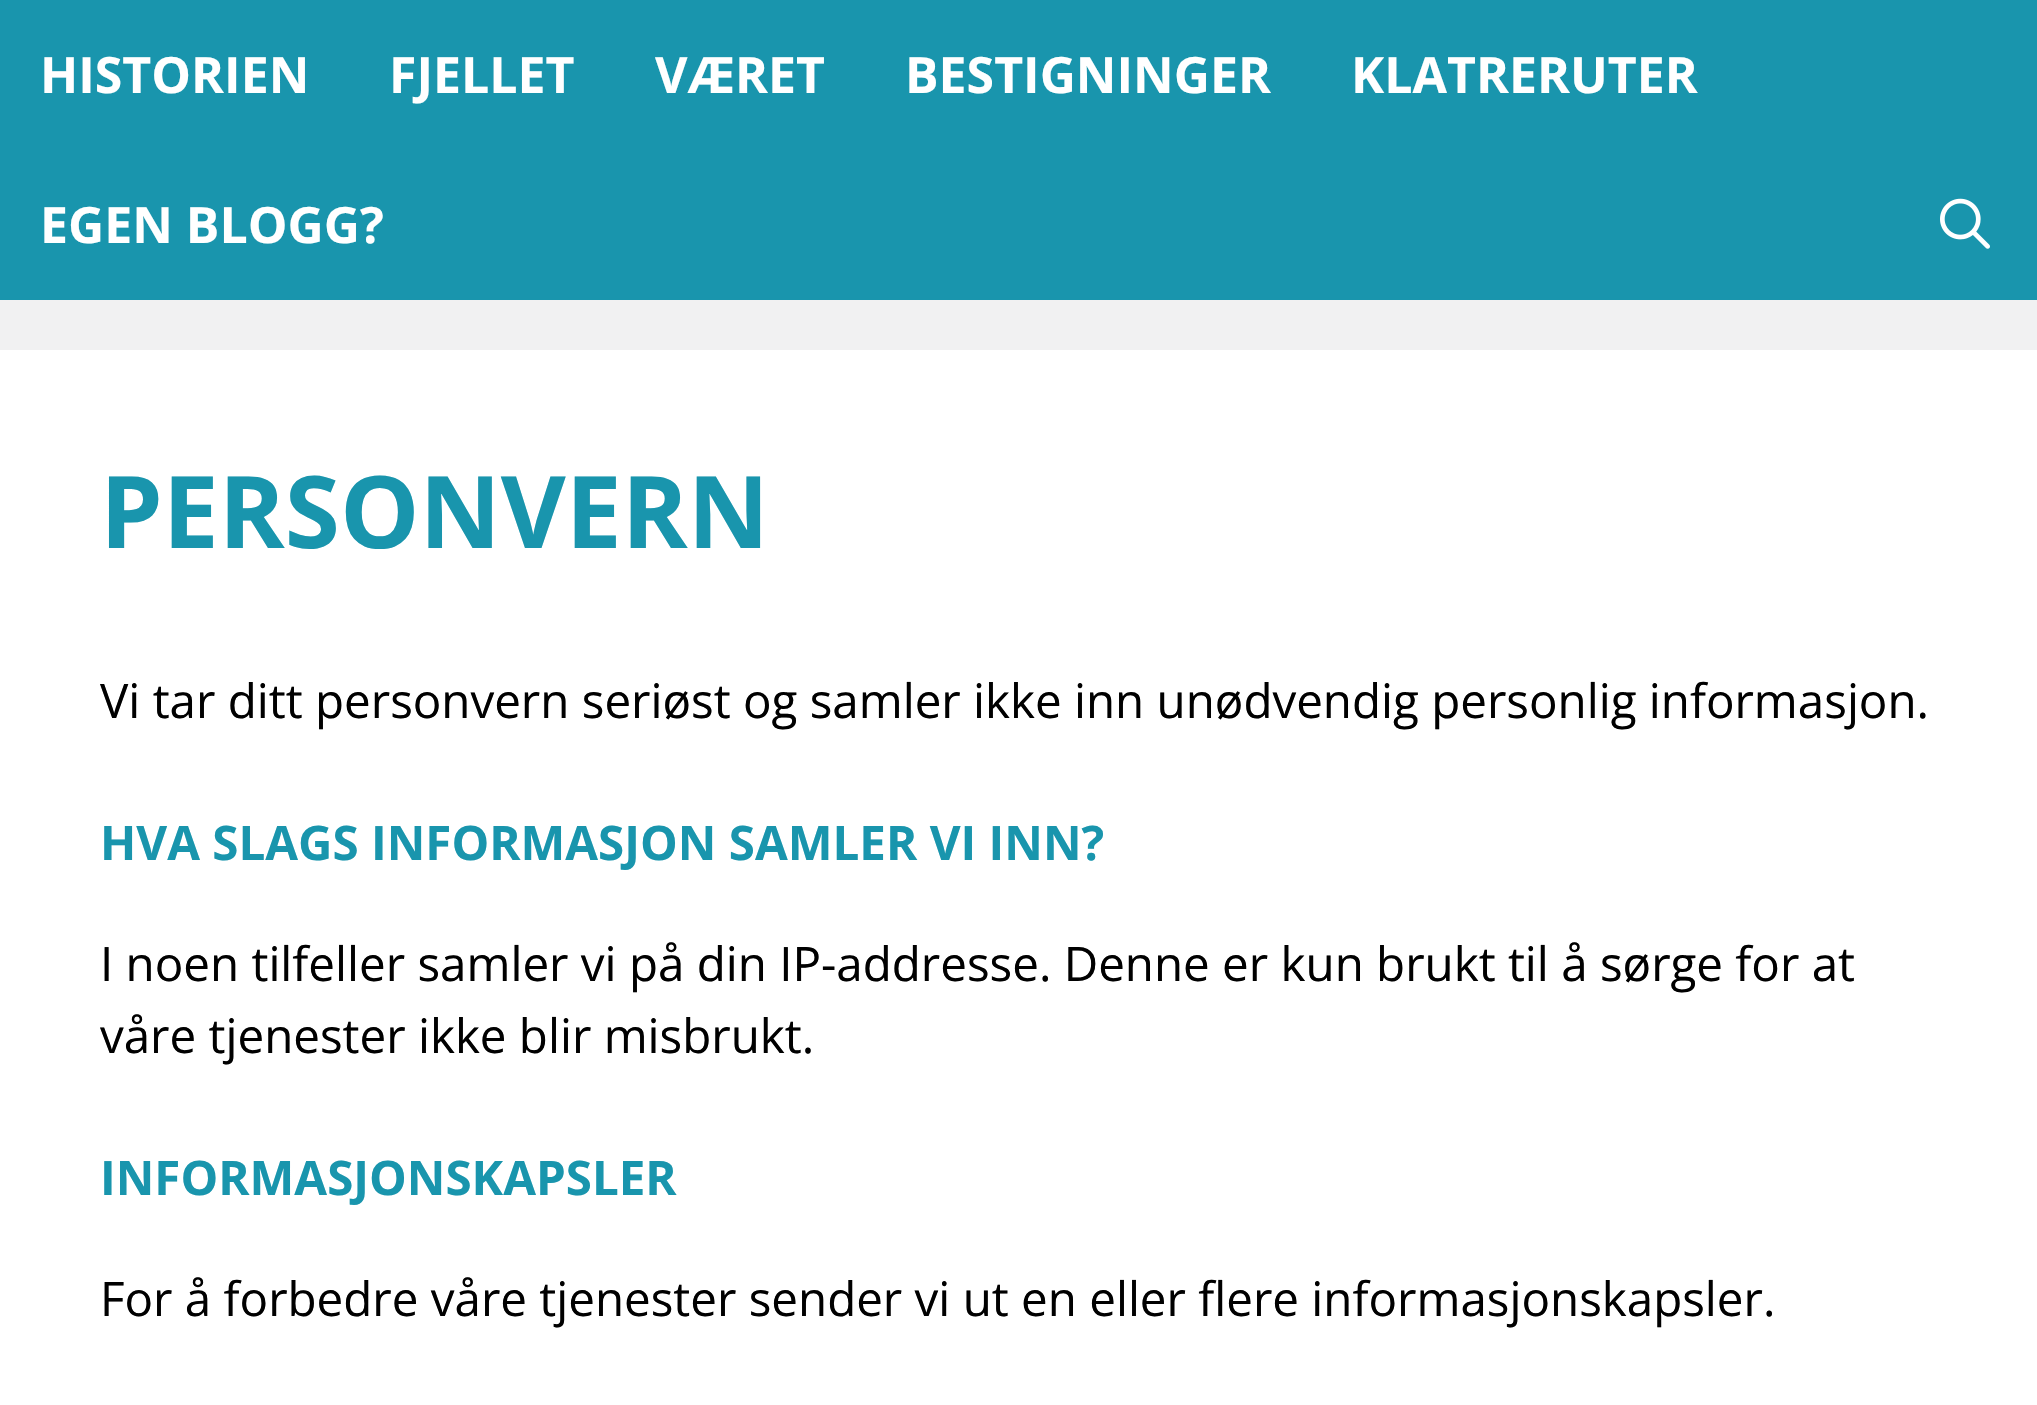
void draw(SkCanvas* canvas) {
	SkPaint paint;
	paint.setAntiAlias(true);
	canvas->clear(0xfff1f1f2);
	paint.setColor(0xff1995ad);
	canvas->drawRect(SkRect::MakeXYWH(0, 0, 2037, 300), paint);
	SkFont f1(fontMgr->matchFamilyStyle("Open Sans", SkFontStyle::Bold()), 50);
	f1.setSubpixel(true);
	paint.setColor(0xffffffff);
	canvas->drawString("HISTORIEN", 40, 93, f1, paint);
	canvas->drawString("FJELLET", 389, 93, f1, paint);
	canvas->drawString("VÆRET", 655, 93, f1, paint);
	canvas->drawString("BESTIGNINGER", 905, 93, f1, paint);
	canvas->drawString("KLATRERUTER", 1351, 93, f1, paint);
	canvas->drawString("EGEN BLOGG?", 40, 243, f1, paint);
	canvas->drawImageRect(SkImages::DeferredFromEncodedData(SkData::MakeFromFileName("img1.png")), SkRect::MakeXYWH(1940, 198, 50, 51), SkSamplingOptions());
	canvas->drawRect(SkRect::MakeXYWH(0, 350, 2037, 1055), paint);
	SkFont f2(fontMgr->matchFamilyStyle("Open Sans", SkFontStyle::Bold()), 100);
	f2.setSubpixel(true);
	paint.setColor(0xff1995ad);
	canvas->drawString("PERSONVERN", 100, 548, f2, paint);
	SkFont f3(fontMgr->matchFamilyStyle("Open Sans", SkFontStyle::Normal()), 47.5);
	f3.setSubpixel(true);
	paint.setColor(0xff000000);
	canvas->drawString("Vi tar ditt personvern seriøst og samler ikke inn unødvendig personlig informasjon.", 100, 718, f3, paint);
	SkFont f4(fontMgr->matchFamilyStyle("Open Sans", SkFontStyle::Bold()), 47.5);
	f4.setSubpixel(true);
	paint.setColor(0xff1995ad);
	canvas->drawString("HVA SLAGS INFORMASJON SAMLER VI INN?", 100, 860, f4, paint);
	paint.setColor(0xff000000);
	canvas->drawString("I noen tilfeller samler vi på din IP-addresse. Denne er kun brukt til å sørge for at", 100, 981, f3, paint);
	canvas->drawString("våre tjenester ikke blir misbrukt.", 100, 1053, f3, paint);
	paint.setColor(0xff1995ad);
	canvas->drawString("INFORMASJONSKAPSLER", 100, 1195, f4, paint);
	paint.setColor(0xff000000);
	canvas->drawString("For å forbedre våre tjenester sender vi ut en eller flere informasjonskapsler.", 100, 1316, f3, paint);
}
